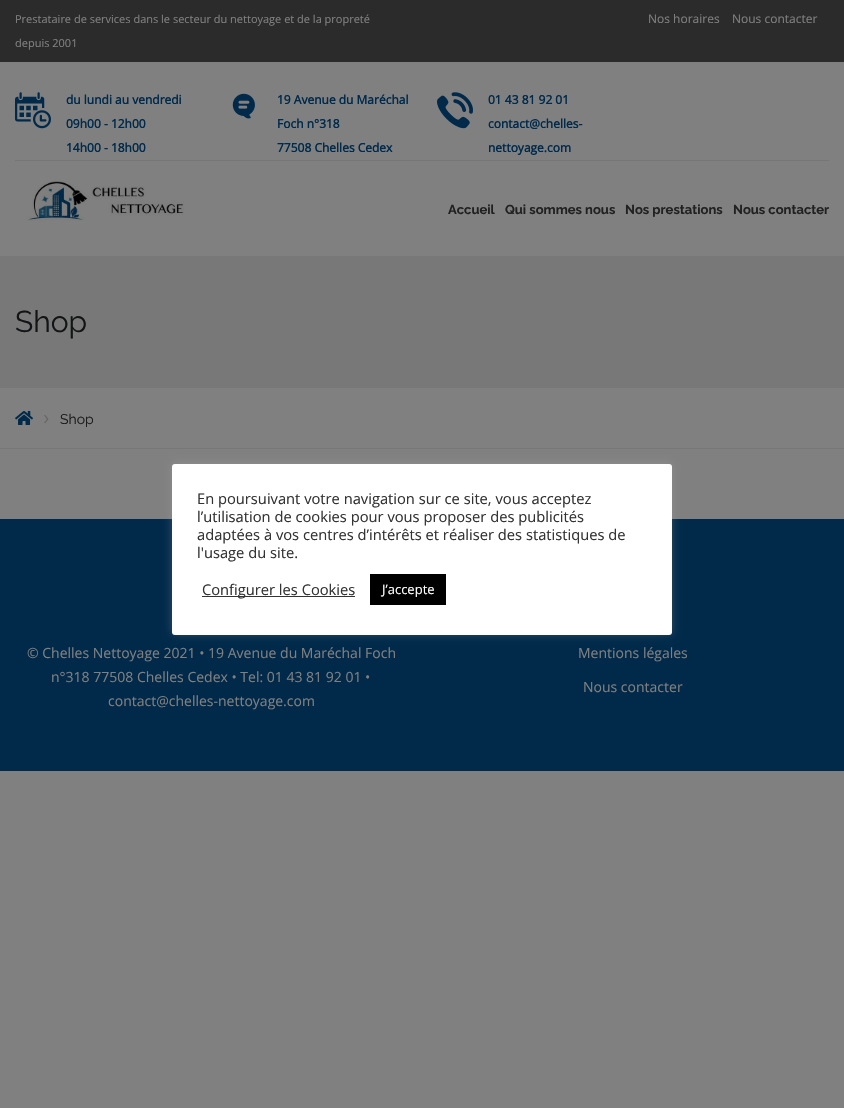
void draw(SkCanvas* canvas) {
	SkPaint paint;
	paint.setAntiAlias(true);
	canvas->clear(0xff808080);
	paint.setColor(0xff2b2b2b);
	canvas->drawRect(SkRect::MakeXYWH(0, 0, 844, 62), paint);
	SkFont f1(fontMgr->matchFamilyStyle("Open Sans", SkFontStyle::Normal()), 11);
	f1.setSubpixel(true);
	paint.setColor(0xff808080);
	canvas->drawString("Prestataire de services dans le secteur du nettoyage et de la propreté", 15, 23, f1, paint);
	canvas->drawString("depuis 2001", 15, 47, f1, paint);
	SkFont f2(fontMgr->matchFamilyStyle("Open Sans", SkFontStyle::Normal()), 12);
	f2.setSubpixel(true);
	canvas->drawString("Nos horaires", 648, 23, f2, paint);
	canvas->drawString("Nous contacter", 732, 23, f2, paint);
	canvas->drawImageRect(SkImages::DeferredFromEncodedData(SkData::MakeFromFileName("img1.png")), SkRect::MakeXYWH(15, 92, 36, 37), SkSamplingOptions());
	SkFont f3(fontMgr->matchFamilyStyle("Open Sans", SkFontStyle::Bold()), 12);
	f3.setSubpixel(true);
	paint.setColor(0xff00294a);
	canvas->drawString("du lundi au vendredi", 66, 104, f3, paint);
	canvas->drawString("09h00 - 12h00", 66, 128, f3, paint);
	canvas->drawString("14h00 - 18h00", 66, 152, f3, paint);
	canvas->drawImageRect(SkImages::DeferredFromEncodedData(SkData::MakeFromFileName("img2.png")), SkRect::MakeXYWH(232, 93, 23, 26), SkSamplingOptions());
	canvas->drawString("19 Avenue du Maréchal", 277, 104, f3, paint);
	canvas->drawString("Foch n°318", 277, 128, f3, paint);
	canvas->drawString("77508 Chelles Cedex", 277, 152, f3, paint);
	canvas->drawImageRect(SkImages::DeferredFromEncodedData(SkData::MakeFromFileName("img3.png")), SkRect::MakeXYWH(437, 92, 36, 37), SkSamplingOptions());
	canvas->drawString("01 43 81 92 01", 488, 104, f3, paint);
	canvas->drawString("contact@chelles-", 488, 128, f3, paint);
	canvas->drawString("nettoyage.com", 488, 152, f3, paint);
	paint.setColor(0xff767676);
	canvas->drawRect(SkRect::MakeXYWH(15, 160, 814, 1), paint);
	canvas->drawImageRect(SkImages::DeferredFromEncodedData(SkData::MakeFromFileName("img4.png")), SkRect::MakeXYWH(27, 181, 157, 40), SkSamplingOptions());
	SkFont f4(fontMgr->matchFamilyStyle("Raleway", SkFontStyle::Bold()), 13);
	f4.setSubpixel(true);
	paint.setColor(0xff212121);
	canvas->drawString("Accueil", 448, 214, f4, paint);
	canvas->drawString("Qui sommes nous", 505, 214, f4, paint);
	canvas->drawString("Nos prestations", 625, 214, f4, paint);
	canvas->drawString("Nous contacter", 733, 214, f4, paint);
	paint.setColor(0xff787878);
	canvas->drawRect(SkRect::MakeXYWH(0, 256, 844, 132), paint);
	SkFont f5(fontMgr->matchFamilyStyle("Raleway", SkFontStyle::Normal()), 30);
	f5.setSubpixel(true);
	paint.setColor(0xff121416);
	canvas->drawString("Shop", 15, 332, f5, paint);
	paint.setColor(0xff777777);
	canvas->drawRect(SkRect::MakeXYWH(0, 448, 844, 1), paint);
	canvas->drawImageRect(SkImages::DeferredFromEncodedData(SkData::MakeFromFileName("img5.png")), SkRect::MakeXYWH(15, 411, 18, 14), SkSamplingOptions());
	canvas->drawImageRect(SkImages::DeferredFromEncodedData(SkData::MakeFromFileName("img6.png")), SkRect::MakeXYWH(44, 415, 5, 9), SkSamplingOptions());
	SkFont f6(fontMgr->matchFamilyStyle("Raleway", SkFontStyle::Normal()), 14);
	f6.setSubpixel(true);
	paint.setColor(0xff1a1a1a);
	canvas->drawString("Shop", 60, 424, f6, paint);
	paint.setColor(0xff00294a);
	canvas->drawRect(SkRect::MakeXYWH(0, 519, 844, 252), paint);
	paint.setColor(0x4dacabab);
	paint.setMaskFilter(SkMaskFilter::MakeBlur(kNormal_SkBlurStyle, 5));
	canvas->drawRoundRect(SkRect::MakeXYWH(172, 463, 500, 171), 3, 3, paint);
	paint.setMaskFilter(nullptr);
	paint.setColor(0xffffffff);
	canvas->drawRoundRect(SkRect::MakeXYWH(172, 464, 500, 171), 3, 3, paint);
	SkFont f7(fontMgr->matchFamilyStyle("Open Sans", SkFontStyle::Normal()), 14.7);
	f7.setSubpixel(true);
	paint.setColor(0xff333333);
	canvas->drawString("En poursuivant votre navigation sur ce site, vous acceptez", 197, 504, f7, paint);
	canvas->drawString("l’utilisation de cookies pour vous proposer des publicités", 197, 522, f7, paint);
	canvas->drawString("adaptées à vos centres d’intérêts et réaliser des statistiques de", 197, 540, f7, paint);
	canvas->drawString("l'usage du site.", 197, 558, f7, paint);
	canvas->drawRect(SkRect::MakeXYWH(202, 596, 153, 1), paint);
	canvas->drawString("Configurer les Cookies", 202, 595, f7, paint);
	paint.setColor(0xff000000);
	canvas->drawRect(SkRect::MakeXYWH(370, 574, 76, 31), paint);
	SkFont f8(fontMgr->matchFamilyStyle("Open Sans", SkFontStyle::Normal()), 13);
	f8.setSubpixel(true);
	paint.setColor(0xffffffff);
	canvas->drawString("J’accepte", 382, 594, f8, paint);
	SkFont f9(fontMgr->matchFamilyStyle("Open Sans", SkFontStyle::Normal()), 14);
	f9.setSubpixel(true);
	paint.setColor(0xff808080);
	canvas->drawString("© Chelles Nettoyage 2021 • 19 Avenue du Maréchal Foch", 27, 658, f9, paint);
	canvas->drawString("n°318 77508 Chelles Cedex • Tel: 01 43 81 92 01 •", 51, 682, f9, paint);
	canvas->drawString("contact@chelles-nettoyage.com", 108, 706, f9, paint);
	canvas->drawString("Mentions légales", 578, 658, f9, paint);
	canvas->drawString("Nous contacter", 583, 692, f9, paint);
}
